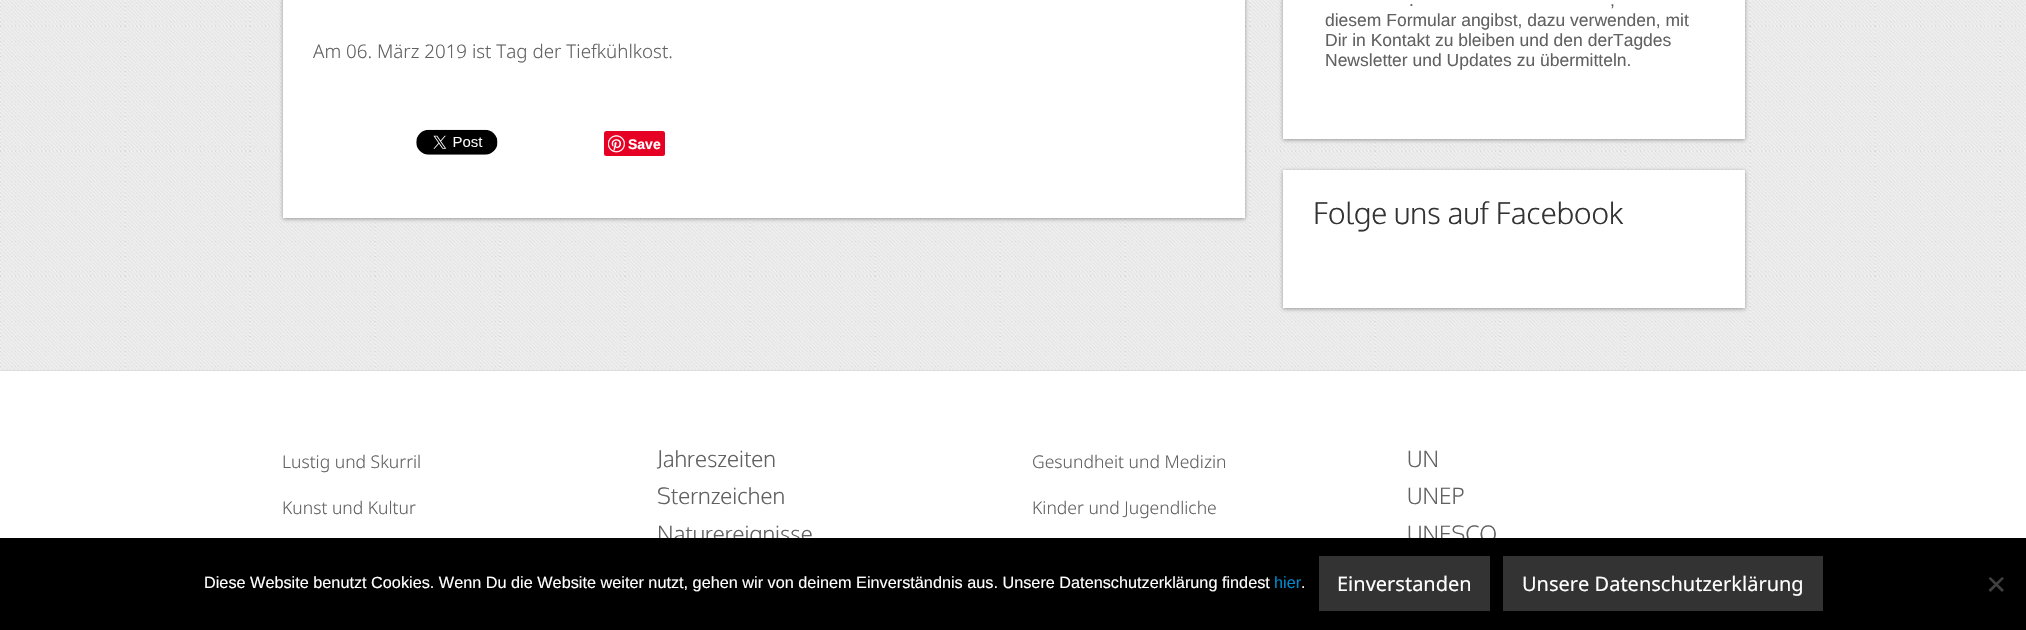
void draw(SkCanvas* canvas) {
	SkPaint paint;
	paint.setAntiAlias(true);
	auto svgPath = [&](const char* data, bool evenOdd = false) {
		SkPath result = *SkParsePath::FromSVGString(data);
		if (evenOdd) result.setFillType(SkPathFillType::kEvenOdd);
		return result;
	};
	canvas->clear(0xffffffff);
	canvas->drawImageRect(SkImages::DeferredFromEncodedData(SkData::MakeFromFileName("img1.png")), SkRect::MakeXYWH(0, 0, 2026, 370), SkSamplingOptions());
	paint.setColor(0x66221919);
	paint.setMaskFilter(SkMaskFilter::MakeBlur(kNormal_SkBlurStyle, 2));
	canvas->drawRect(SkRect::MakeXYWH(283, -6, 962, 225), paint);
	paint.setMaskFilter(nullptr);
	paint.setColor(0xffffffff);
	canvas->drawRect(SkRect::MakeXYWH(283, 0, 962, 218), paint);
	SkFont f1(fontMgr->matchFamilyStyle("Noto Sans", SkFontStyle(300, SkFontStyle::kNormal_Width, SkFontStyle::kUpright_Slant)), 18.75);
	f1.setSubpixel(true);
	paint.setColor(0xff616161);
	canvas->drawString("Am 06. März 2019 ist Tag der Tiefkühlkost.", 313, 58, f1, paint);
	canvas->drawImageRect(SkImages::DeferredFromEncodedData(SkData::MakeFromFileName("img2.png")), SkRect::MakeXYWH(416, 129, 82, 26), SkSamplingOptions());
	paint.setColor(0xffe60023);
	canvas->drawRoundRect(SkRect::MakeXYWH(604, 131, 61, 25), 2.5, 2.5, paint);
	canvas->drawImageRect(SkImages::DeferredFromEncodedData(SkData::MakeFromFileName("img3.png")), SkRect::MakeXYWH(608, 135, 17, 18), SkSamplingOptions());
	SkFont f2(fontMgr->matchFamilyStyle("Liberation Sans", SkFontStyle::Bold()), 14);
	f2.setSubpixel(true);
	paint.setColor(0xffffffff);
	canvas->drawString("Save", 628, 149, f2, paint);
	paint.setColor(0x66221919);
	paint.setMaskFilter(SkMaskFilter::MakeBlur(kNormal_SkBlurStyle, 2));
	canvas->drawRect(SkRect::MakeXYWH(1283, -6, 462, 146), paint);
	paint.setMaskFilter(nullptr);
	paint.setColor(0xffffffff);
	canvas->drawRect(SkRect::MakeXYWH(1283, 0, 462, 139), paint);
	SkFont f3(fontMgr->matchFamilyStyle("Liberation Sans", SkFontStyle::Normal()), 17.5);
	f3.setSubpixel(true);
	paint.setColor(0xff616161);
	canvas->drawString(".", 1409, 6, f3, paint);
	canvas->drawString(",", 1610, 6, f3, paint);
	canvas->drawString("diesem Formular angibst, dazu verwenden, mit", 1325, 26, f3, paint);
	canvas->drawString("Dir in Kontakt zu bleiben und den derTagdes", 1325, 46, f3, paint);
	canvas->drawString("Newsletter und Updates zu übermitteln.", 1325, 66, f3, paint);
	paint.setColor(0x66221919);
	paint.setMaskFilter(SkMaskFilter::MakeBlur(kNormal_SkBlurStyle, 2));
	canvas->drawRect(SkRect::MakeXYWH(1283, 171, 462, 138), paint);
	paint.setMaskFilter(nullptr);
	paint.setColor(0xffffffff);
	canvas->drawRect(SkRect::MakeXYWH(1283, 170, 462, 138), paint);
	SkFont f4(fontMgr->matchFamilyStyle("Oxygen", SkFontStyle(300, SkFontStyle::kNormal_Width, SkFontStyle::kUpright_Slant)), 30);
	f4.setSubpixel(true);
	paint.setColor(0xff333333);
	canvas->drawString("Folge uns auf Facebook", 1313, 224, f4, paint);
	paint.setColor(0xffdddddd);
	canvas->drawRect(SkRect::MakeXYWH(0, 370, 2026, 1), paint);
	SkFont f5(fontMgr->matchFamilyStyle("Noto Sans", SkFontStyle(300, SkFontStyle::kNormal_Width, SkFontStyle::kUpright_Slant)), 17.5);
	f5.setSubpixel(true);
	paint.setColor(0xff616161);
	canvas->drawString("Lustig und Skurril", 282, 468, f5, paint);
	canvas->drawString("Kunst und Kultur", 282, 514, f5, paint);
	SkFont f6(fontMgr->matchFamilyStyle("Oxygen", SkFontStyle(300, SkFontStyle::kNormal_Width, SkFontStyle::kUpright_Slant)), 22.5);
	f6.setSubpixel(true);
	canvas->drawString("Jahreszeiten", 657, 467, f6, paint);
	canvas->drawString("Sternzeichen", 657, 504, f6, paint);
	canvas->drawString("Naturereignisse", 657, 542, f6, paint);
	canvas->drawString("Gesundheit und Medizin", 1032, 468, f5, paint);
	canvas->drawString("Kinder und Jugendliche", 1032, 514, f5, paint);
	canvas->drawString("UN", 1407, 467, f6, paint);
	canvas->drawString("UNEP", 1407, 504, f6, paint);
	canvas->drawString("UNESCO", 1407, 542, f6, paint);
	paint.setColor(0xff000000);
	canvas->drawRect(SkRect::MakeXYWH(0, 538, 2026, 92), paint);
	SkFont f7(fontMgr->matchFamilyStyle("Liberation Sans", SkFontStyle::Normal()), 16.25);
	f7.setSubpixel(true);
	paint.setColor(0xffffffff);
	canvas->drawString("Diese Website benutzt Cookies. Wenn Du die Website weiter nutzt, gehen wir von deinem Einverständnis aus. Unsere Datenschutzerklärung findest", 204, 588, f7, paint);
	paint.setColor(0xff0088cc);
	canvas->drawString("hier", 1274, 588, f7, paint);
	paint.setColor(0xffffffff);
	canvas->drawString(".", 1301, 588, f7, paint);
	paint.setColor(0xff333333);
	canvas->drawRect(SkRect::MakeXYWH(1319, 556, 171, 55), paint);
	SkFont f8(fontMgr->matchFamilyStyle("Noto Sans", SkFontStyle::Normal()), 20);
	f8.setSubpixel(true);
	paint.setColor(0xffffffff);
	canvas->drawString("Einverstanden", 1337, 591, f8, paint);
	paint.setColor(0xff333333);
	canvas->drawRect(SkRect::MakeXYWH(1503, 556, 320, 55), paint);
	paint.setColor(0xffffffff);
	canvas->drawString("Unsere Datenschutzerklärung", 1522, 591, f8, paint);
	paint.setColor(0xff404040);
	canvas->drawPath(svgPath("M2002 577L2004 578.5L1990.5 592L1988.5 590Z"), paint);
	canvas->drawPath(svgPath("M1988.5 578.5L1990.5 577L2004 590L2002 592Z"), paint);
}
